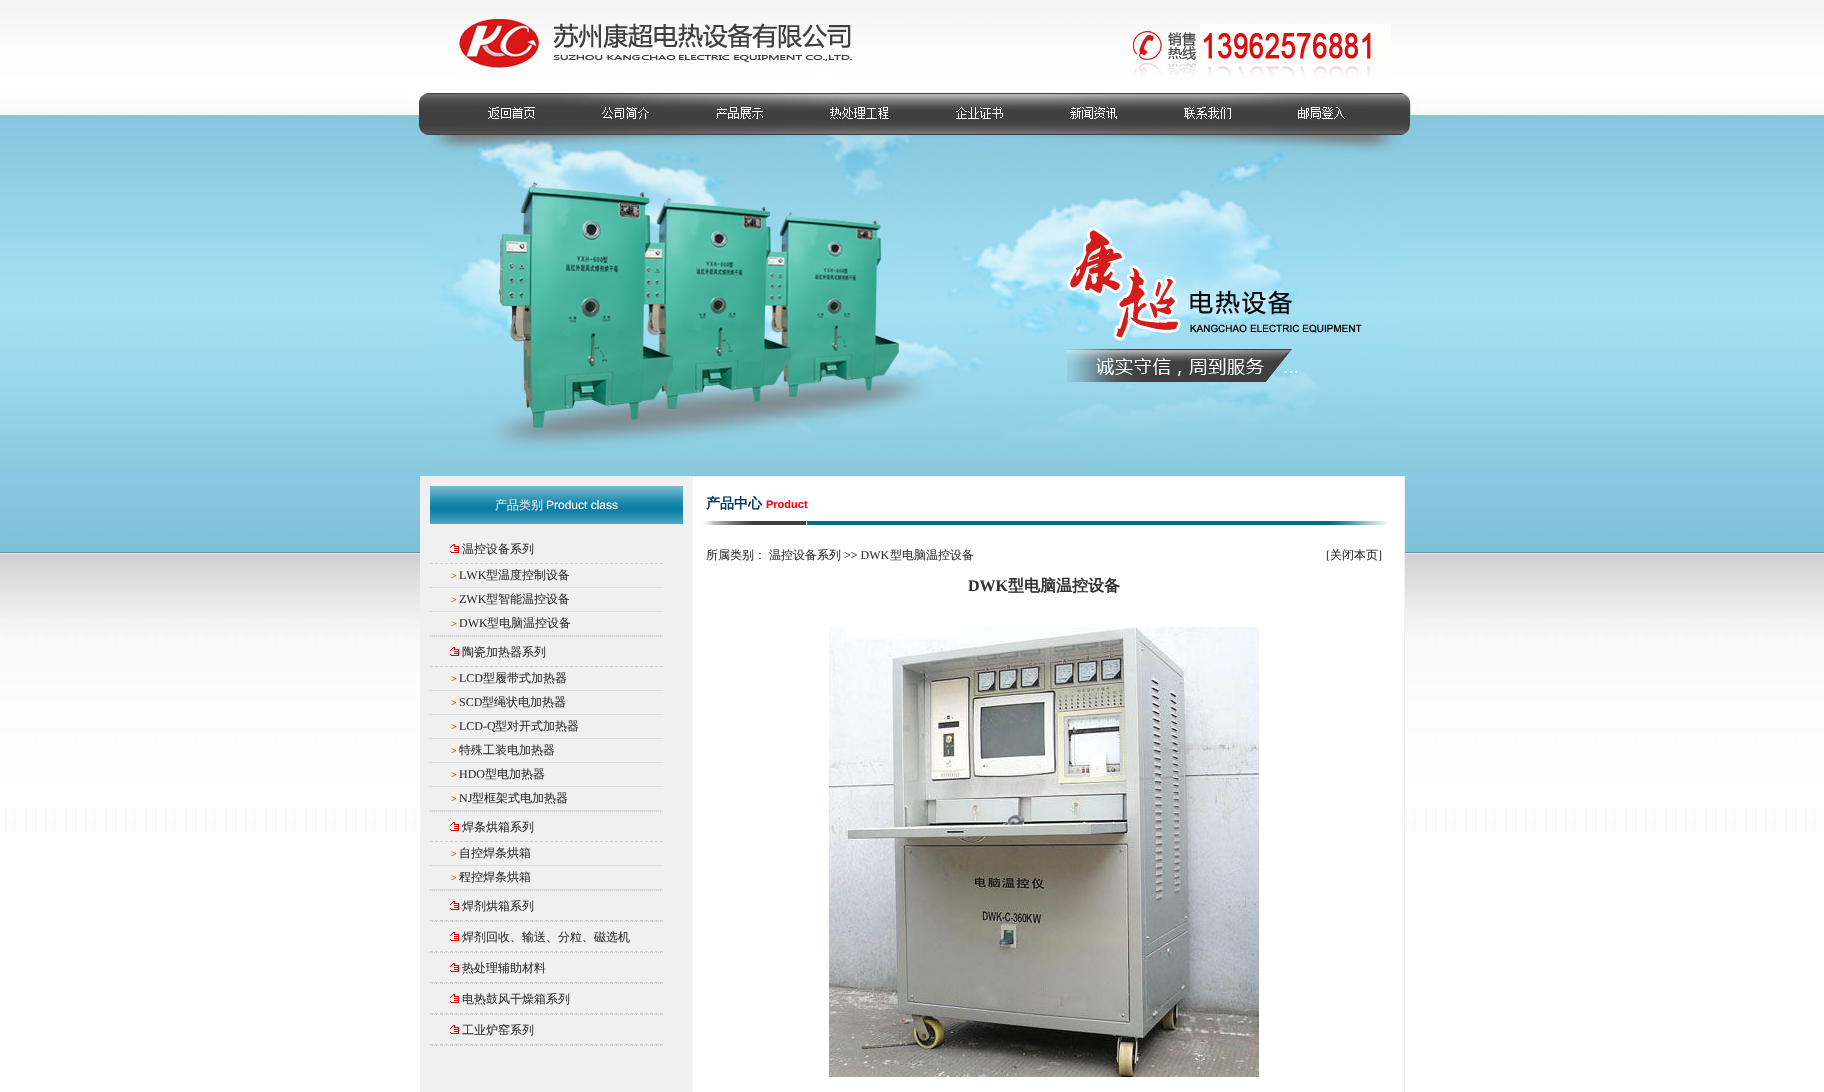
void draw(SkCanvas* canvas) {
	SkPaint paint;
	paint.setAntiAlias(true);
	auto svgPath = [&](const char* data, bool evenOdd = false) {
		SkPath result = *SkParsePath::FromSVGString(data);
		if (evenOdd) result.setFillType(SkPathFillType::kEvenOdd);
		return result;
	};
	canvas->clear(0xffffffff);
	canvas->drawImageRect(SkImages::DeferredFromEncodedData(SkData::MakeFromFileName("img1.png")), SkRect::MakeXYWH(0, 0, 1824, 832), SkSamplingOptions());
	canvas->drawImageRect(SkImages::DeferredFromEncodedData(SkData::MakeFromFileName("img2.png")), SkRect::MakeXYWH(455, 16, 936, 63), SkSamplingOptions());
	canvas->drawImageRect(SkImages::DeferredFromEncodedData(SkData::MakeFromFileName("img3.png")), SkRect::MakeXYWH(407, 92, 54, 43), SkSamplingOptions());
	canvas->drawImageRect(SkImages::DeferredFromEncodedData(SkData::MakeFromFileName("img4.png")), SkRect::MakeXYWH(461, 93, 105, 42), SkSamplingOptions());
	canvas->drawImageRect(SkImages::DeferredFromEncodedData(SkData::MakeFromFileName("img5.png")), SkRect::MakeXYWH(566, 93, 112, 42), SkSamplingOptions());
	canvas->drawImageRect(SkImages::DeferredFromEncodedData(SkData::MakeFromFileName("img6.png")), SkRect::MakeXYWH(678, 93, 116, 42), SkSamplingOptions());
	canvas->drawImageRect(SkImages::DeferredFromEncodedData(SkData::MakeFromFileName("img7.png")), SkRect::MakeXYWH(794, 93, 122, 42), SkSamplingOptions());
	canvas->drawImageRect(SkImages::DeferredFromEncodedData(SkData::MakeFromFileName("img8.png")), SkRect::MakeXYWH(916, 93, 115, 42), SkSamplingOptions());
	canvas->drawImageRect(SkImages::DeferredFromEncodedData(SkData::MakeFromFileName("img9.png")), SkRect::MakeXYWH(1031, 93, 116, 42), SkSamplingOptions());
	canvas->drawImageRect(SkImages::DeferredFromEncodedData(SkData::MakeFromFileName("img10.png")), SkRect::MakeXYWH(1147, 93, 113, 42), SkSamplingOptions());
	canvas->drawImageRect(SkImages::DeferredFromEncodedData(SkData::MakeFromFileName("img11.png")), SkRect::MakeXYWH(1260, 93, 109, 42), SkSamplingOptions());
	canvas->drawImageRect(SkImages::DeferredFromEncodedData(SkData::MakeFromFileName("img12.png")), SkRect::MakeXYWH(1369, 93, 49, 42), SkSamplingOptions());
	canvas->drawImageRect(SkImages::DeferredFromEncodedData(SkData::MakeFromFileName("img13.png")), SkRect::MakeXYWH(428, 135, 974, 331), SkSamplingOptions());
	paint.setColor(0xfff0f0f0);
	canvas->drawRect(SkRect::MakeXYWH(420, 476, 273, 616), paint);
	canvas->drawImageRect(SkImages::DeferredFromEncodedData(SkData::MakeFromFileName("img14.png")), SkRect::MakeXYWH(430, 486, 253, 38), SkSamplingOptions());
	SkFont f1(fontMgr->matchFamilyStyle("WenQuanYi Zen Hei", SkFontStyle(500, SkFontStyle::kNormal_Width, SkFontStyle::kUpright_Slant)), 12);
	f1.setSubpixel(true);
	paint.setColor(0xffe4e4e4);
	canvas->drawString("产品类别", 495, 509, f1, paint);
	SkFont f2(fontMgr->matchFamilyStyle("Liberation Sans", SkFontStyle::Normal()), 12);
	f2.setSubpixel(true);
	paint.setColor(0xffffffff);
	canvas->drawString("Product class", 546, 509, f2, paint);
	paint.setStroke(true);
	paint.setStrokeWidth(1);
	paint.setColor(0xffcccccc);
	paint.setPathEffect(SkDashPathEffect::Make({{3, 2}}, 0));
	canvas->drawPath(svgPath("M430 563.5H663"), paint);
	paint.setPathEffect(nullptr);
	canvas->drawImageRect(SkImages::DeferredFromEncodedData(SkData::MakeFromFileName("img15.png")), SkRect::MakeXYWH(450, 544, 9, 9), SkSamplingOptions());
	paint.setStroke(false);
	paint.setColor(0xff333333);
	canvas->drawString("温控设备系列", 462, 553, f1, paint);
	paint.setStroke(true);
	paint.setColor(0xffcccccc);
	paint.setPathEffect(SkDashPathEffect::Make({{1, 1}}, 0));
	canvas->drawPath(svgPath("M430 636.5H663"), paint);
	paint.setPathEffect(nullptr);
	paint.setStroke(false);
	paint.setColor(0xffdddddd);
	canvas->drawRect(SkRect::MakeXYWH(429, 587, 234, 1), paint);
	SkFont f3(fontMgr->matchFamilyStyle("Liberation Serif", SkFontStyle::Bold()), 10);
	f3.setSubpixel(true);
	paint.setColor(0xffcc6600);
	canvas->drawString(">", 451, 579, f3, paint);
	SkFont f4(fontMgr->matchFamilyStyle("Liberation Serif", SkFontStyle::Normal()), 12);
	f4.setSubpixel(true);
	paint.setColor(0xff333333);
	canvas->drawString("LWK", 459, 579, f4, paint);
	canvas->drawString("型温度控制设备", 486, 579, f1, paint);
	paint.setColor(0xffdddddd);
	canvas->drawRect(SkRect::MakeXYWH(429, 611, 234, 1), paint);
	paint.setColor(0xffcc6600);
	canvas->drawString(">", 451, 603, f3, paint);
	paint.setColor(0xff333333);
	canvas->drawString("ZWK", 459, 603, f4, paint);
	canvas->drawString("型智能温控设备", 486, 603, f1, paint);
	paint.setColor(0xffdddddd);
	canvas->drawRect(SkRect::MakeXYWH(429, 635, 234, 1), paint);
	paint.setColor(0xffcc6600);
	canvas->drawString(">", 451, 627, f3, paint);
	paint.setColor(0xff333333);
	canvas->drawString("DWK", 459, 627, f4, paint);
	canvas->drawString("型电脑温控设备", 487, 627, f1, paint);
	paint.setStroke(true);
	paint.setColor(0xffcccccc);
	paint.setPathEffect(SkDashPathEffect::Make({{3, 2}}, 0));
	canvas->drawPath(svgPath("M430 666.5H663"), paint);
	paint.setPathEffect(nullptr);
	canvas->drawImageRect(SkImages::DeferredFromEncodedData(SkData::MakeFromFileName("img15.png")), SkRect::MakeXYWH(450, 647, 9, 9), SkSamplingOptions());
	paint.setStroke(false);
	paint.setColor(0xff333333);
	canvas->drawString("陶瓷加热器系列", 462, 656, f1, paint);
	paint.setStroke(true);
	paint.setColor(0xffcccccc);
	paint.setPathEffect(SkDashPathEffect::Make({{1, 1}}, 0));
	canvas->drawPath(svgPath("M430 811.5H663"), paint);
	paint.setPathEffect(nullptr);
	paint.setStroke(false);
	paint.setColor(0xffdddddd);
	canvas->drawRect(SkRect::MakeXYWH(429, 690, 234, 1), paint);
	paint.setColor(0xffcc6600);
	canvas->drawString(">", 451, 682, f3, paint);
	paint.setColor(0xff333333);
	canvas->drawString("LCD", 459, 682, f4, paint);
	canvas->drawString("型履带式加热器", 483, 682, f1, paint);
	paint.setColor(0xffdddddd);
	canvas->drawRect(SkRect::MakeXYWH(429, 714, 234, 1), paint);
	paint.setColor(0xffcc6600);
	canvas->drawString(">", 451, 706, f3, paint);
	paint.setColor(0xff333333);
	canvas->drawString("SCD", 459, 706, f4, paint);
	canvas->drawString("型绳状电加热器", 482, 706, f1, paint);
	paint.setColor(0xffdddddd);
	canvas->drawRect(SkRect::MakeXYWH(429, 738, 234, 1), paint);
	paint.setColor(0xffcc6600);
	canvas->drawString(">", 451, 730, f3, paint);
	paint.setColor(0xff333333);
	canvas->drawString("LCD-Q", 459, 730, f4, paint);
	canvas->drawString("型对开式加热器", 495, 730, f1, paint);
	paint.setColor(0xffdddddd);
	canvas->drawRect(SkRect::MakeXYWH(429, 762, 234, 1), paint);
	paint.setColor(0xffcc6600);
	canvas->drawString(">", 451, 754, f3, paint);
	paint.setColor(0xff333333);
	canvas->drawString("特殊工装电加热器", 459, 754, f1, paint);
	paint.setColor(0xffdddddd);
	canvas->drawRect(SkRect::MakeXYWH(429, 786, 234, 1), paint);
	paint.setColor(0xffcc6600);
	canvas->drawString(">", 451, 778, f3, paint);
	paint.setColor(0xff333333);
	canvas->drawString("HDO", 459, 778, f4, paint);
	canvas->drawString("型电加热器", 485, 778, f1, paint);
	paint.setColor(0xffdddddd);
	canvas->drawRect(SkRect::MakeXYWH(429, 810, 234, 1), paint);
	paint.setColor(0xffcc6600);
	canvas->drawString(">", 451, 802, f3, paint);
	paint.setColor(0xff333333);
	canvas->drawString("NJ", 459, 802, f4, paint);
	canvas->drawString("型框架式电加热器", 472, 802, f1, paint);
	paint.setStroke(true);
	paint.setColor(0xffcccccc);
	paint.setPathEffect(SkDashPathEffect::Make({{3, 2}}, 0));
	canvas->drawPath(svgPath("M430 841.5H663"), paint);
	paint.setPathEffect(nullptr);
	canvas->drawImageRect(SkImages::DeferredFromEncodedData(SkData::MakeFromFileName("img15.png")), SkRect::MakeXYWH(450, 822, 9, 9), SkSamplingOptions());
	paint.setStroke(false);
	paint.setColor(0xff333333);
	canvas->drawString("焊条烘箱系列", 462, 831, f1, paint);
	paint.setStroke(true);
	paint.setColor(0xffcccccc);
	paint.setPathEffect(SkDashPathEffect::Make({{1, 1}}, 0));
	canvas->drawPath(svgPath("M430 890.5H663"), paint);
	paint.setPathEffect(nullptr);
	paint.setStroke(false);
	paint.setColor(0xffdddddd);
	canvas->drawRect(SkRect::MakeXYWH(429, 865, 234, 1), paint);
	paint.setColor(0xffcc6600);
	canvas->drawString(">", 451, 857, f3, paint);
	paint.setColor(0xff333333);
	canvas->drawString("自控焊条烘箱", 459, 857, f1, paint);
	paint.setColor(0xffdddddd);
	canvas->drawRect(SkRect::MakeXYWH(429, 889, 234, 1), paint);
	paint.setColor(0xffcc6600);
	canvas->drawString(">", 451, 881, f3, paint);
	paint.setColor(0xff333333);
	canvas->drawString("程控焊条烘箱", 459, 881, f1, paint);
	paint.setStroke(true);
	paint.setColor(0xffcccccc);
	paint.setPathEffect(SkDashPathEffect::Make({{3, 2}}, 0));
	canvas->drawPath(svgPath("M430 920.5H663"), paint);
	paint.setPathEffect(nullptr);
	canvas->drawImageRect(SkImages::DeferredFromEncodedData(SkData::MakeFromFileName("img15.png")), SkRect::MakeXYWH(450, 901, 9, 9), SkSamplingOptions());
	paint.setStroke(false);
	paint.setColor(0xff333333);
	canvas->drawString("焊剂烘箱系列", 462, 910, f1, paint);
	paint.setStroke(true);
	paint.setColor(0xffcccccc);
	paint.setPathEffect(SkDashPathEffect::Make({{1, 1}}, 0));
	canvas->drawPath(svgPath("M430 921.5H663"), paint);
	paint.setPathEffect(nullptr);
	paint.setPathEffect(SkDashPathEffect::Make({{3, 2}}, 0));
	canvas->drawPath(svgPath("M430 951.5H663"), paint);
	paint.setPathEffect(nullptr);
	canvas->drawImageRect(SkImages::DeferredFromEncodedData(SkData::MakeFromFileName("img15.png")), SkRect::MakeXYWH(450, 932, 9, 9), SkSamplingOptions());
	paint.setStroke(false);
	paint.setColor(0xff333333);
	canvas->drawString("焊剂回收、输送、分粒、磁选机", 462, 941, f1, paint);
	paint.setStroke(true);
	paint.setColor(0xffcccccc);
	paint.setPathEffect(SkDashPathEffect::Make({{1, 1}}, 0));
	canvas->drawPath(svgPath("M430 952.5H663"), paint);
	paint.setPathEffect(nullptr);
	paint.setPathEffect(SkDashPathEffect::Make({{3, 2}}, 0));
	canvas->drawPath(svgPath("M430 982.5H663"), paint);
	paint.setPathEffect(nullptr);
	canvas->drawImageRect(SkImages::DeferredFromEncodedData(SkData::MakeFromFileName("img15.png")), SkRect::MakeXYWH(450, 963, 9, 9), SkSamplingOptions());
	paint.setStroke(false);
	paint.setColor(0xff333333);
	canvas->drawString("热处理辅助材料", 462, 972, f1, paint);
	paint.setStroke(true);
	paint.setColor(0xffcccccc);
	paint.setPathEffect(SkDashPathEffect::Make({{1, 1}}, 0));
	canvas->drawPath(svgPath("M430 983.5H663"), paint);
	paint.setPathEffect(nullptr);
	paint.setPathEffect(SkDashPathEffect::Make({{3, 2}}, 0));
	canvas->drawPath(svgPath("M430 1013.5H663"), paint);
	paint.setPathEffect(nullptr);
	canvas->drawImageRect(SkImages::DeferredFromEncodedData(SkData::MakeFromFileName("img15.png")), SkRect::MakeXYWH(450, 994, 9, 9), SkSamplingOptions());
	paint.setStroke(false);
	paint.setColor(0xff333333);
	canvas->drawString("电热鼓风干燥箱系列", 462, 1003, f1, paint);
	paint.setStroke(true);
	paint.setColor(0xffcccccc);
	paint.setPathEffect(SkDashPathEffect::Make({{1, 1}}, 0));
	canvas->drawPath(svgPath("M430 1014.5H663"), paint);
	paint.setPathEffect(nullptr);
	paint.setPathEffect(SkDashPathEffect::Make({{3, 2}}, 0));
	canvas->drawPath(svgPath("M430 1044.5H663"), paint);
	paint.setPathEffect(nullptr);
	canvas->drawImageRect(SkImages::DeferredFromEncodedData(SkData::MakeFromFileName("img15.png")), SkRect::MakeXYWH(450, 1025, 9, 9), SkSamplingOptions());
	paint.setStroke(false);
	paint.setColor(0xff333333);
	canvas->drawString("工业炉窑系列", 462, 1034, f1, paint);
	paint.setStroke(true);
	paint.setColor(0xffcccccc);
	paint.setPathEffect(SkDashPathEffect::Make({{1, 1}}, 0));
	canvas->drawPath(svgPath("M430 1045.5H663"), paint);
	paint.setPathEffect(nullptr);
	paint.setStroke(false);
	paint.setColor(0xffffffff);
	canvas->drawRect(SkRect::MakeXYWH(693, 477, 711, 355), paint);
	paint.setColor(0xfff0f0f0);
	canvas->drawRect(SkRect::MakeXYWH(693, 476, 712, 1), paint);
	canvas->drawRect(SkRect::MakeXYWH(1404, 476, 1, 616), paint);
	SkFont f5(fontMgr->matchFamilyStyle("WenQuanYi Zen Hei", SkFontStyle::Bold()), 14);
	f5.setSubpixel(true);
	paint.setColor(0xff003470);
	canvas->drawString("产品中心", 706, 508, f5, paint);
	SkFont f6(fontMgr->matchFamilyStyle("Liberation Sans", SkFontStyle::Bold()), 11);
	f6.setSubpixel(true);
	paint.setColor(0xffff020d);
	canvas->drawString("Product", 766, 508, f6, paint);
	canvas->drawImageRect(SkImages::DeferredFromEncodedData(SkData::MakeFromFileName("img16.png")), SkRect::MakeXYWH(703, 521, 103, 4), SkSamplingOptions());
	canvas->drawImageRect(SkImages::DeferredFromEncodedData(SkData::MakeFromFileName("img17.png")), SkRect::MakeXYWH(806, 521, 580, 8), SkSamplingOptions());
	paint.setColor(0xff333333);
	canvas->drawString("所属类别：", 706, 559, f1, paint);
	canvas->drawString("温控设备系列", 769, 559, f1, paint);
	canvas->drawString(">> DWK", 844, 559, f4, paint);
	canvas->drawString("型电脑温控设备", 890, 559, f1, paint);
	canvas->drawString("[", 1326, 559, f4, paint);
	canvas->drawString("关闭本页", 1330, 559, f1, paint);
	canvas->drawString("]", 1378, 559, f4, paint);
	SkFont f7(fontMgr->matchFamilyStyle("Liberation Serif", SkFontStyle::Bold()), 16);
	f7.setSubpixel(true);
	canvas->drawString("DWK", 968, 591, f7, paint);
	SkFont f8(fontMgr->matchFamilyStyle("WenQuanYi Zen Hei", SkFontStyle::Bold()), 16);
	f8.setSubpixel(true);
	canvas->drawString("型电脑温控设备", 1008, 591, f8, paint);
	canvas->drawImageRect(SkImages::DeferredFromEncodedData(SkData::MakeFromFileName("img18.png")), SkRect::MakeXYWH(829, 627, 430, 450), SkSamplingOptions());
}
